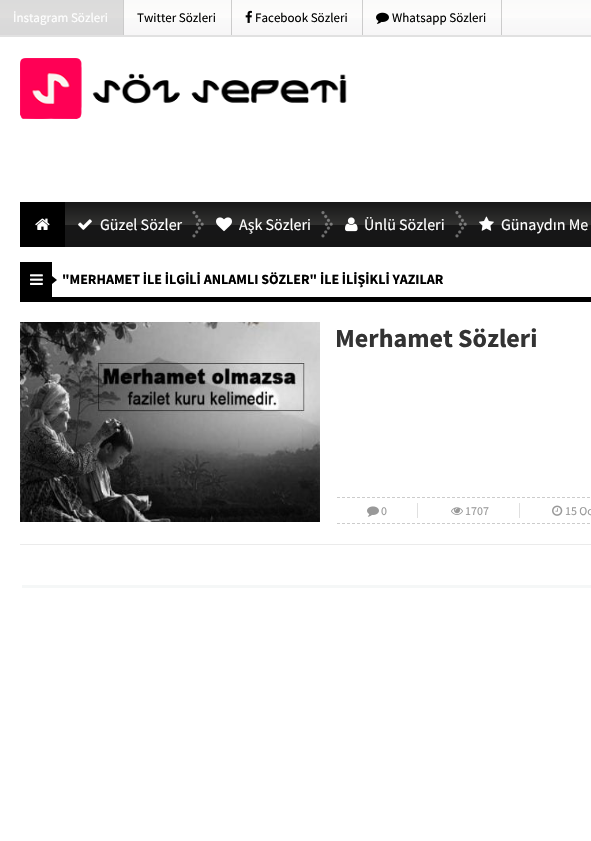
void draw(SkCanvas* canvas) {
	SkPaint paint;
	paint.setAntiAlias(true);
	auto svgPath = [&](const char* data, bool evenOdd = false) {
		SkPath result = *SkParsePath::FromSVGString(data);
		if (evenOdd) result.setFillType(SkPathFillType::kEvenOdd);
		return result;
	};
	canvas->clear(0xffffffff);
	{
		const SkColor colors[] = {0xfff7f6f7, 0xfffafafa, 0xfffdfcfb, 0xfffafafa};
		const float stops[] = {0, 0.5, 0.5, 1};
		const SkPoint ends[] = {{296, 35}, {296, 0}};
		paint.setShader(SkGradientShader::MakeLinear(ends, colors, stops, 4, SkTileMode::kClamp));
		paint.setAlpha(255);
	}
	canvas->drawRect(SkRect::MakeXYWH(0, 0, 591, 35), paint);
	paint.setShader(nullptr);
	paint.setColor(0xffe1e1e1);
	canvas->drawRect(SkRect::MakeXYWH(0, 35, 591, 2), paint);
	paint.setColor(0x2e000000);
	canvas->drawRect(SkRect::MakeXYWH(123, 0, 1, 35), paint);
	paint.setColor(0x1f000000);
	canvas->drawRect(SkRect::MakeXYWH(0, 0, 123, 35), paint);
	SkFont f1(fontMgr->matchFamilyStyle("Source Sans Pro", SkFontStyle::Normal()), 13);
	f1.setSubpixel(true);
	paint.setColor(0xffffffff);
	canvas->drawString("İnstagram Sözleri", 13, 22, f1, paint);
	paint.setColor(0x2e000000);
	canvas->drawRect(SkRect::MakeXYWH(231, 0, 1, 35), paint);
	paint.setColor(0xff000000);
	canvas->drawString("Twitter Sözleri", 137, 22, f1, paint);
	paint.setColor(0x2e000000);
	canvas->drawRect(SkRect::MakeXYWH(362, 0, 1, 35), paint);
	canvas->drawImageRect(SkImages::DeferredFromEncodedData(SkData::MakeFromFileName("img1.png")), SkRect::MakeXYWH(245, 10, 7, 13), SkSamplingOptions());
	paint.setColor(0xff000000);
	canvas->drawString("Facebook Sözleri", 255, 22, f1, paint);
	paint.setColor(0x2e000000);
	canvas->drawRect(SkRect::MakeXYWH(501, 0, 1, 35), paint);
	canvas->drawImageRect(SkImages::DeferredFromEncodedData(SkData::MakeFromFileName("img2.png")), SkRect::MakeXYWH(376, 12, 13, 12), SkSamplingOptions());
	paint.setColor(0xff000000);
	canvas->drawString("Whatsapp Sözleri", 392, 22, f1, paint);
	canvas->drawImageRect(SkImages::DeferredFromEncodedData(SkData::MakeFromFileName("img3.png")), SkRect::MakeXYWH(20, 58, 327, 61), SkSamplingOptions());
	{
		const SkColor colors[] = {0xff151516, 0xff171717, 0xff313130, 0xff171717};
		const float stops[] = {0, 0.5, 0.5, 1};
		const SkPoint ends[] = {{570, 247}, {570, 202}};
		paint.setShader(SkGradientShader::MakeLinear(ends, colors, stops, 4, SkTileMode::kClamp));
		paint.setAlpha(255);
	}
	canvas->drawRect(SkRect::MakeXYWH(65, 202, 526, 45), paint);
	paint.setShader(nullptr);
	paint.setColor(0xff000000);
	canvas->drawRect(SkRect::MakeXYWH(20, 202, 45, 45), paint);
	canvas->drawImageRect(SkImages::DeferredFromEncodedData(SkData::MakeFromFileName("img4.png")), SkRect::MakeXYWH(35, 218, 15, 12), SkSamplingOptions());
	canvas->drawImageRect(SkImages::DeferredFromEncodedData(SkData::MakeFromFileName("img5.png")), SkRect::MakeXYWH(192, 211, 12, 27), SkSamplingOptions());
	canvas->drawImageRect(SkImages::DeferredFromEncodedData(SkData::MakeFromFileName("img6.png")), SkRect::MakeXYWH(78, 219, 14, 11), SkSamplingOptions());
	SkFont f2(fontMgr->matchFamilyStyle("Source Sans Pro", SkFontStyle::Normal()), 16);
	f2.setSubpixel(true);
	paint.setColor(0xffffffff);
	canvas->drawString("Güzel Sözler", 100, 230, f2, paint);
	canvas->drawImageRect(SkImages::DeferredFromEncodedData(SkData::MakeFromFileName("img5.png")), SkRect::MakeXYWH(321, 211, 12, 27), SkSamplingOptions());
	canvas->drawImageRect(SkImages::DeferredFromEncodedData(SkData::MakeFromFileName("img7.png")), SkRect::MakeXYWH(216, 217, 16, 15), SkSamplingOptions());
	canvas->drawString("Aşk Sözleri", 239, 230, f2, paint);
	canvas->drawImageRect(SkImages::DeferredFromEncodedData(SkData::MakeFromFileName("img5.png")), SkRect::MakeXYWH(455, 211, 12, 27), SkSamplingOptions());
	canvas->drawImageRect(SkImages::DeferredFromEncodedData(SkData::MakeFromFileName("img8.png")), SkRect::MakeXYWH(345, 217, 13, 15), SkSamplingOptions());
	canvas->drawString("Ünlü Sözleri", 364, 230, f2, paint);
	canvas->drawImageRect(SkImages::DeferredFromEncodedData(SkData::MakeFromFileName("img9.png")), SkRect::MakeXYWH(479, 216, 15, 15), SkSamplingOptions());
	canvas->drawString("Günaydın Me", 501, 230, f2, paint);
	paint.setColor(0xfff5f7f7);
	canvas->drawRect(SkRect::MakeXYWH(22, 585, 569, 3), paint);
	paint.setColor(0xff000000);
	canvas->drawRect(SkRect::MakeXYWH(20, 297, 571, 5), paint);
	canvas->drawRect(SkRect::MakeXYWH(20, 262, 32, 35), paint);
	canvas->drawImageRect(SkImages::DeferredFromEncodedData(SkData::MakeFromFileName("img10.png")), SkRect::MakeXYWH(30, 274, 13, 11), SkSamplingOptions());
	canvas->drawPath(svgPath("M52 284V276L57 280Z"), paint);
	SkFont f3(fontMgr->matchFamilyStyle("Source Sans Pro", SkFontStyle::Bold()), 14);
	f3.setSubpixel(true);
	canvas->drawString("\"MERHAMET İLE İLGİLİ ANLAMLI SÖZLER\" İLE İLİŞİKLİ YAZILAR", 62, 284, f3, paint);
	paint.setColor(0xffebebeb);
	canvas->drawRect(SkRect::MakeXYWH(20, 544, 571, 1), paint);
	canvas->drawImageRect(SkImages::DeferredFromEncodedData(SkData::MakeFromFileName("img11.png")), SkRect::MakeXYWH(20, 322, 300, 200), SkSamplingOptions());
	SkFont f4(fontMgr->matchFamilyStyle("Source Sans Pro", SkFontStyle::Bold()), 26);
	f4.setSubpixel(true);
	paint.setColor(0xff333333);
	canvas->drawString("Merhamet Sözleri", 335, 347, f4, paint);
	paint.setStroke(true);
	paint.setStrokeWidth(1);
	paint.setColor(0xffcccccc);
	paint.setPathEffect(SkDashPathEffect::Make({{3, 2}}, 0));
	canvas->drawPath(svgPath("M337 497.5H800"), paint);
	paint.setPathEffect(nullptr);
	paint.setPathEffect(SkDashPathEffect::Make({{3, 2}}, 0));
	canvas->drawPath(svgPath("M337 523.5H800"), paint);
	paint.setPathEffect(nullptr);
	paint.setStroke(false);
	paint.setColor(0xffe0e0e0);
	canvas->drawRect(SkRect::MakeXYWH(417, 503, 1, 15), paint);
	canvas->drawImageRect(SkImages::DeferredFromEncodedData(SkData::MakeFromFileName("img12.png")), SkRect::MakeXYWH(367, 506, 12, 11), SkSamplingOptions());
	SkFont f5(fontMgr->matchFamilyStyle("Source Sans Pro", SkFontStyle::Normal()), 12);
	f5.setSubpixel(true);
	paint.setColor(0xff999999);
	canvas->drawString("0", 381, 515, f5, paint);
	paint.setColor(0xffe0e0e0);
	canvas->drawRect(SkRect::MakeXYWH(519, 503, 1, 15), paint);
	canvas->drawImageRect(SkImages::DeferredFromEncodedData(SkData::MakeFromFileName("img13.png")), SkRect::MakeXYWH(451, 507, 12, 8), SkSamplingOptions());
	paint.setColor(0xff999999);
	canvas->drawString("1707", 465, 515, f5, paint);
	canvas->drawImageRect(SkImages::DeferredFromEncodedData(SkData::MakeFromFileName("img14.png")), SkRect::MakeXYWH(552, 505, 11, 11), SkSamplingOptions());
	canvas->drawString("15 Oc", 565, 515, f5, paint);
}
